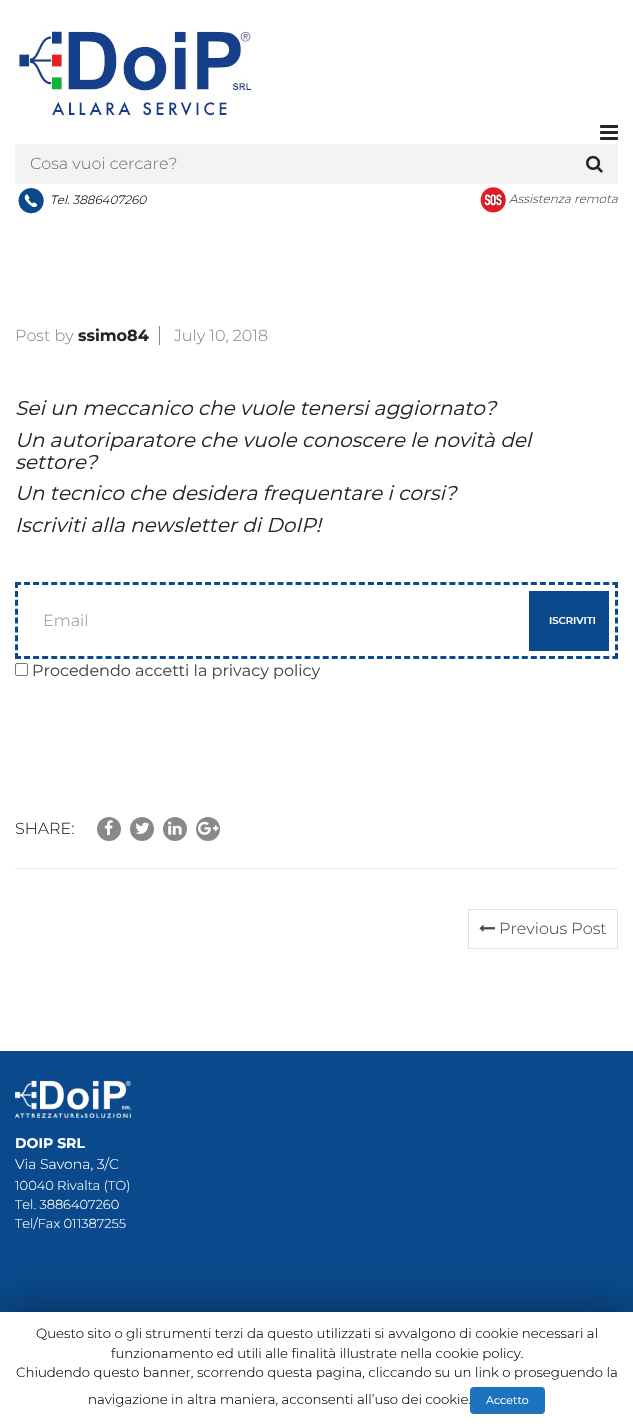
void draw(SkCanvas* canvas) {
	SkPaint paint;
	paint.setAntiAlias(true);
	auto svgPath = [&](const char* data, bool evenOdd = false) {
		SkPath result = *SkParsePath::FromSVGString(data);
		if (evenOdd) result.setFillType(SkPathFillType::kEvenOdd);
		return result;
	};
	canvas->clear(0xffffffff);
	canvas->drawImageRect(SkImages::DeferredFromEncodedData(SkData::MakeFromFileName("img1.png")), SkRect::MakeXYWH(600, 125, 18, 15), SkSamplingOptions());
	canvas->drawImageRect(SkImages::DeferredFromEncodedData(SkData::MakeFromFileName("img2.png")), SkRect::MakeXYWH(15, 31, 240, 88), SkSamplingOptions());
	paint.setColor(0xfff3f3f3);
	canvas->drawRect(SkRect::MakeXYWH(15, 144, 603, 40), paint);
	SkFont f1(fontMgr->matchFamilyStyle("Montserrat", SkFontStyle(100, SkFontStyle::kNormal_Width, SkFontStyle::kUpright_Slant)), 16);
	f1.setSubpixel(true);
	paint.setColor(0xff757575);
	canvas->drawString("Cosa vuoi cercare?", 30, 169, f1, paint);
	canvas->drawImageRect(SkImages::DeferredFromEncodedData(SkData::MakeFromFileName("img3.png")), SkRect::MakeXYWH(586, 155, 17, 18), SkSamplingOptions());
	canvas->drawImageRect(SkImages::DeferredFromEncodedData(SkData::MakeFromFileName("img4.png")), SkRect::MakeXYWH(18, 188, 26, 26), SkSamplingOptions());
	SkFont f2(fontMgr->matchFamilyStyle("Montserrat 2", SkFontStyle(100, SkFontStyle::kNormal_Width, SkFontStyle::kItalic_Slant)), 12);
	f2.setSubpixel(true);
	paint.setColor(0xff000000);
	canvas->drawString("Tel. 3886407260", 50, 204, f2, paint);
	canvas->drawImageRect(SkImages::DeferredFromEncodedData(SkData::MakeFromFileName("img5.png")), SkRect::MakeXYWH(480, 187, 26, 26), SkSamplingOptions());
	paint.setColor(0xff464646);
	canvas->drawString("Assistenza remota", 509, 203, f2, paint);
	paint.setColor(0xff898989);
	canvas->drawString("Post by", 15, 341, f1, paint);
	SkFont f3(fontMgr->matchFamilyStyle("Montserrat", SkFontStyle::Bold()), 16);
	f3.setSubpixel(true);
	paint.setColor(0xff252525);
	canvas->drawString("ssimo84", 78, 341, f3, paint);
	paint.setColor(0xff898989);
	canvas->drawRect(SkRect::MakeXYWH(159, 326, 1, 19), paint);
	canvas->drawString("July 10, 2018", 174, 341, f1, paint);
	SkFont f4(fontMgr->matchFamilyStyle("Montserrat", SkFontStyle(100, SkFontStyle::kNormal_Width, SkFontStyle::kItalic_Slant)), 20);
	f4.setSubpixel(true);
	paint.setColor(0xff252525);
	canvas->drawString("Sei un meccanico che vuole tenersi aggiornato?", 15, 415, f4, paint);
	canvas->drawString("Un autoriparatore che vuole conoscere le novità del", 15, 447, f4, paint);
	canvas->drawString("settore?", 15, 469, f4, paint);
	canvas->drawString("Un tecnico che desidera frequentare i corsi?", 15, 500, f4, paint);
	canvas->drawString("Iscriviti alla newsletter di DoIP!", 15, 532, f4, paint);
	paint.setStroke(true);
	paint.setStrokeWidth(3);
	paint.setColor(0xff0a4a8c);
	paint.setPathEffect(SkDashPathEffect::Make({{6, 3.05f}}, 0));
	canvas->drawPath(svgPath("M15 583.5H618"), paint);
	paint.setPathEffect(nullptr);
	paint.setPathEffect(SkDashPathEffect::Make({{6, 2.88f}}, 0));
	canvas->drawPath(svgPath("M616.5 582V659"), paint);
	paint.setPathEffect(nullptr);
	paint.setPathEffect(SkDashPathEffect::Make({{6, 3.05f}}, 0));
	canvas->drawPath(svgPath("M15 657.5H618"), paint);
	paint.setPathEffect(nullptr);
	paint.setPathEffect(SkDashPathEffect::Make({{6, 2.88f}}, 0));
	canvas->drawPath(svgPath("M16.5 582V659"), paint);
	paint.setPathEffect(nullptr);
	paint.setStroke(false);
	paint.setColor(0xff959595);
	canvas->drawString("Email", 43, 626, f1, paint);
	paint.setColor(0xff0a4a8c);
	canvas->drawRect(SkRect::MakeXYWH(529, 591, 80, 60), paint);
	SkFont f5(fontMgr->matchFamilyStyle("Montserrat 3", SkFontStyle(100, SkFontStyle::kNormal_Width, SkFontStyle::kUpright_Slant)), 10);
	f5.setSubpixel(true);
	paint.setColor(0xffffffff);
	canvas->drawString("ISCRIVITI", 549, 624, f5, paint);
	paint.setStroke(true);
	paint.setStrokeWidth(1);
	paint.setColor(0xff767676);
	canvas->drawRoundRect(SkRect::MakeXYWH(15.5, 663.5, 12, 12), 1.5, 1.5, paint);
	SkFont f6(fontMgr->matchFamilyStyle("Montserrat 2", SkFontStyle(100, SkFontStyle::kNormal_Width, SkFontStyle::kUpright_Slant)), 16);
	f6.setSubpixel(true);
	paint.setStroke(false);
	paint.setColor(0xff464646);
	canvas->drawString("Procedendo accetti la privacy policy", 32, 676, f6, paint);
	paint.setColor(0xffebebeb);
	canvas->drawRect(SkRect::MakeXYWH(15, 868, 603, 1), paint);
	paint.setColor(0xff252525);
	canvas->drawString("SHARE:", 15, 834, f1, paint);
	paint.setColor(0xff898989);
	canvas->drawCircle(109, 829, 12, paint);
	canvas->drawImageRect(SkImages::DeferredFromEncodedData(SkData::MakeFromFileName("img6.png")), SkRect::MakeXYWH(104, 820, 9, 16), SkSamplingOptions());
	canvas->drawCircle(142, 829, 12, paint);
	canvas->drawImageRect(SkImages::DeferredFromEncodedData(SkData::MakeFromFileName("img7.png")), SkRect::MakeXYWH(135, 822, 15, 12), SkSamplingOptions());
	canvas->drawCircle(175, 829, 12, paint);
	canvas->drawImageRect(SkImages::DeferredFromEncodedData(SkData::MakeFromFileName("img8.png")), SkRect::MakeXYWH(168, 821, 14, 14), SkSamplingOptions());
	canvas->drawCircle(208, 829, 12, paint);
	canvas->drawImageRect(SkImages::DeferredFromEncodedData(SkData::MakeFromFileName("img9.png")), SkRect::MakeXYWH(198, 821, 21, 14), SkSamplingOptions());
	paint.setStroke(true);
	paint.setColor(0xffe1e1e1);
	canvas->drawRect(SkRect::MakeXYWH(468.5, 909.5, 149, 39), paint);
	canvas->drawImageRect(SkImages::DeferredFromEncodedData(SkData::MakeFromFileName("img10.png")), SkRect::MakeXYWH(479, 924, 16, 8), SkSamplingOptions());
	paint.setStroke(false);
	paint.setColor(0xff464646);
	canvas->drawString("Previous Post", 499, 934, f1, paint);
	paint.setColor(0xff0a4a8c);
	canvas->drawRect(SkRect::MakeXYWH(0, 1051, 633, 261), paint);
	canvas->drawImageRect(SkImages::DeferredFromEncodedData(SkData::MakeFromFileName("img11.png")), SkRect::MakeXYWH(15, 1080, 116, 38), SkSamplingOptions());
	SkFont f7(fontMgr->matchFamilyStyle("Montserrat", SkFontStyle::Bold()), 14);
	f7.setSubpixel(true);
	paint.setColor(0xffffffff);
	canvas->drawString("DOIP SRL", 15, 1148, f7, paint);
	SkFont f8(fontMgr->matchFamilyStyle("Montserrat", SkFontStyle(100, SkFontStyle::kNormal_Width, SkFontStyle::kUpright_Slant)), 14);
	f8.setSubpixel(true);
	canvas->drawString("Via Savona, 3/C", 15, 1169, f8, paint);
	SkFont f9(fontMgr->matchFamilyStyle("Montserrat", SkFontStyle(100, SkFontStyle::kNormal_Width, SkFontStyle::kUpright_Slant)), 13);
	f9.setSubpixel(true);
	canvas->drawString("10040 Rivalta (TO)", 15, 1190, f9, paint);
	canvas->drawString("Tel. 3886407260", 15, 1209, f9, paint);
	canvas->drawString("Tel/Fax 011387255", 15, 1228, f9, paint);
	paint.setColor(0x80000000);
	paint.setMaskFilter(SkMaskFilter::MakeBlur(kNormal_SkBlurStyle, 25));
	canvas->drawRect(SkRect::MakeXYWH(0, 1317, 633, 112), paint);
	paint.setMaskFilter(nullptr);
	paint.setColor(0xffffffff);
	canvas->drawRect(SkRect::MakeXYWH(0, 1312, 633, 112), paint);
	SkFont f10(fontMgr->matchFamilyStyle("Montserrat", SkFontStyle(100, SkFontStyle::kNormal_Width, SkFontStyle::kUpright_Slant)), 13.35);
	f10.setSubpixel(true);
	paint.setColor(0xff000000);
	canvas->drawString("Questo sito o gli strumenti terzi da questo utilizzati si avvalgono di cookie necessari al", 36, 1338, f10, paint);
	canvas->drawString("funzionamento ed utili alle finalità illustrate nella cookie policy.", 111, 1358, f10, paint);
	canvas->drawString("Chiudendo questo banner, scorrendo questa pagina, cliccando su un link o proseguendo la", 16, 1377, f10, paint);
	canvas->drawString("navigazione in altra maniera, acconsenti all’uso dei cookie.", 88, 1404, f10, paint);
	paint.setColor(0xff1e73be);
	canvas->drawRoundRect(SkRect::MakeXYWH(470, 1387, 75, 27), 4, 4, paint);
	SkFont f11(fontMgr->matchFamilyStyle("Montserrat 2", SkFontStyle(100, SkFontStyle::kNormal_Width, SkFontStyle::kUpright_Slant)), 11);
	f11.setSubpixel(true);
	paint.setColor(0xffffffff);
	canvas->drawString("Accetto", 486, 1404, f11, paint);
}
